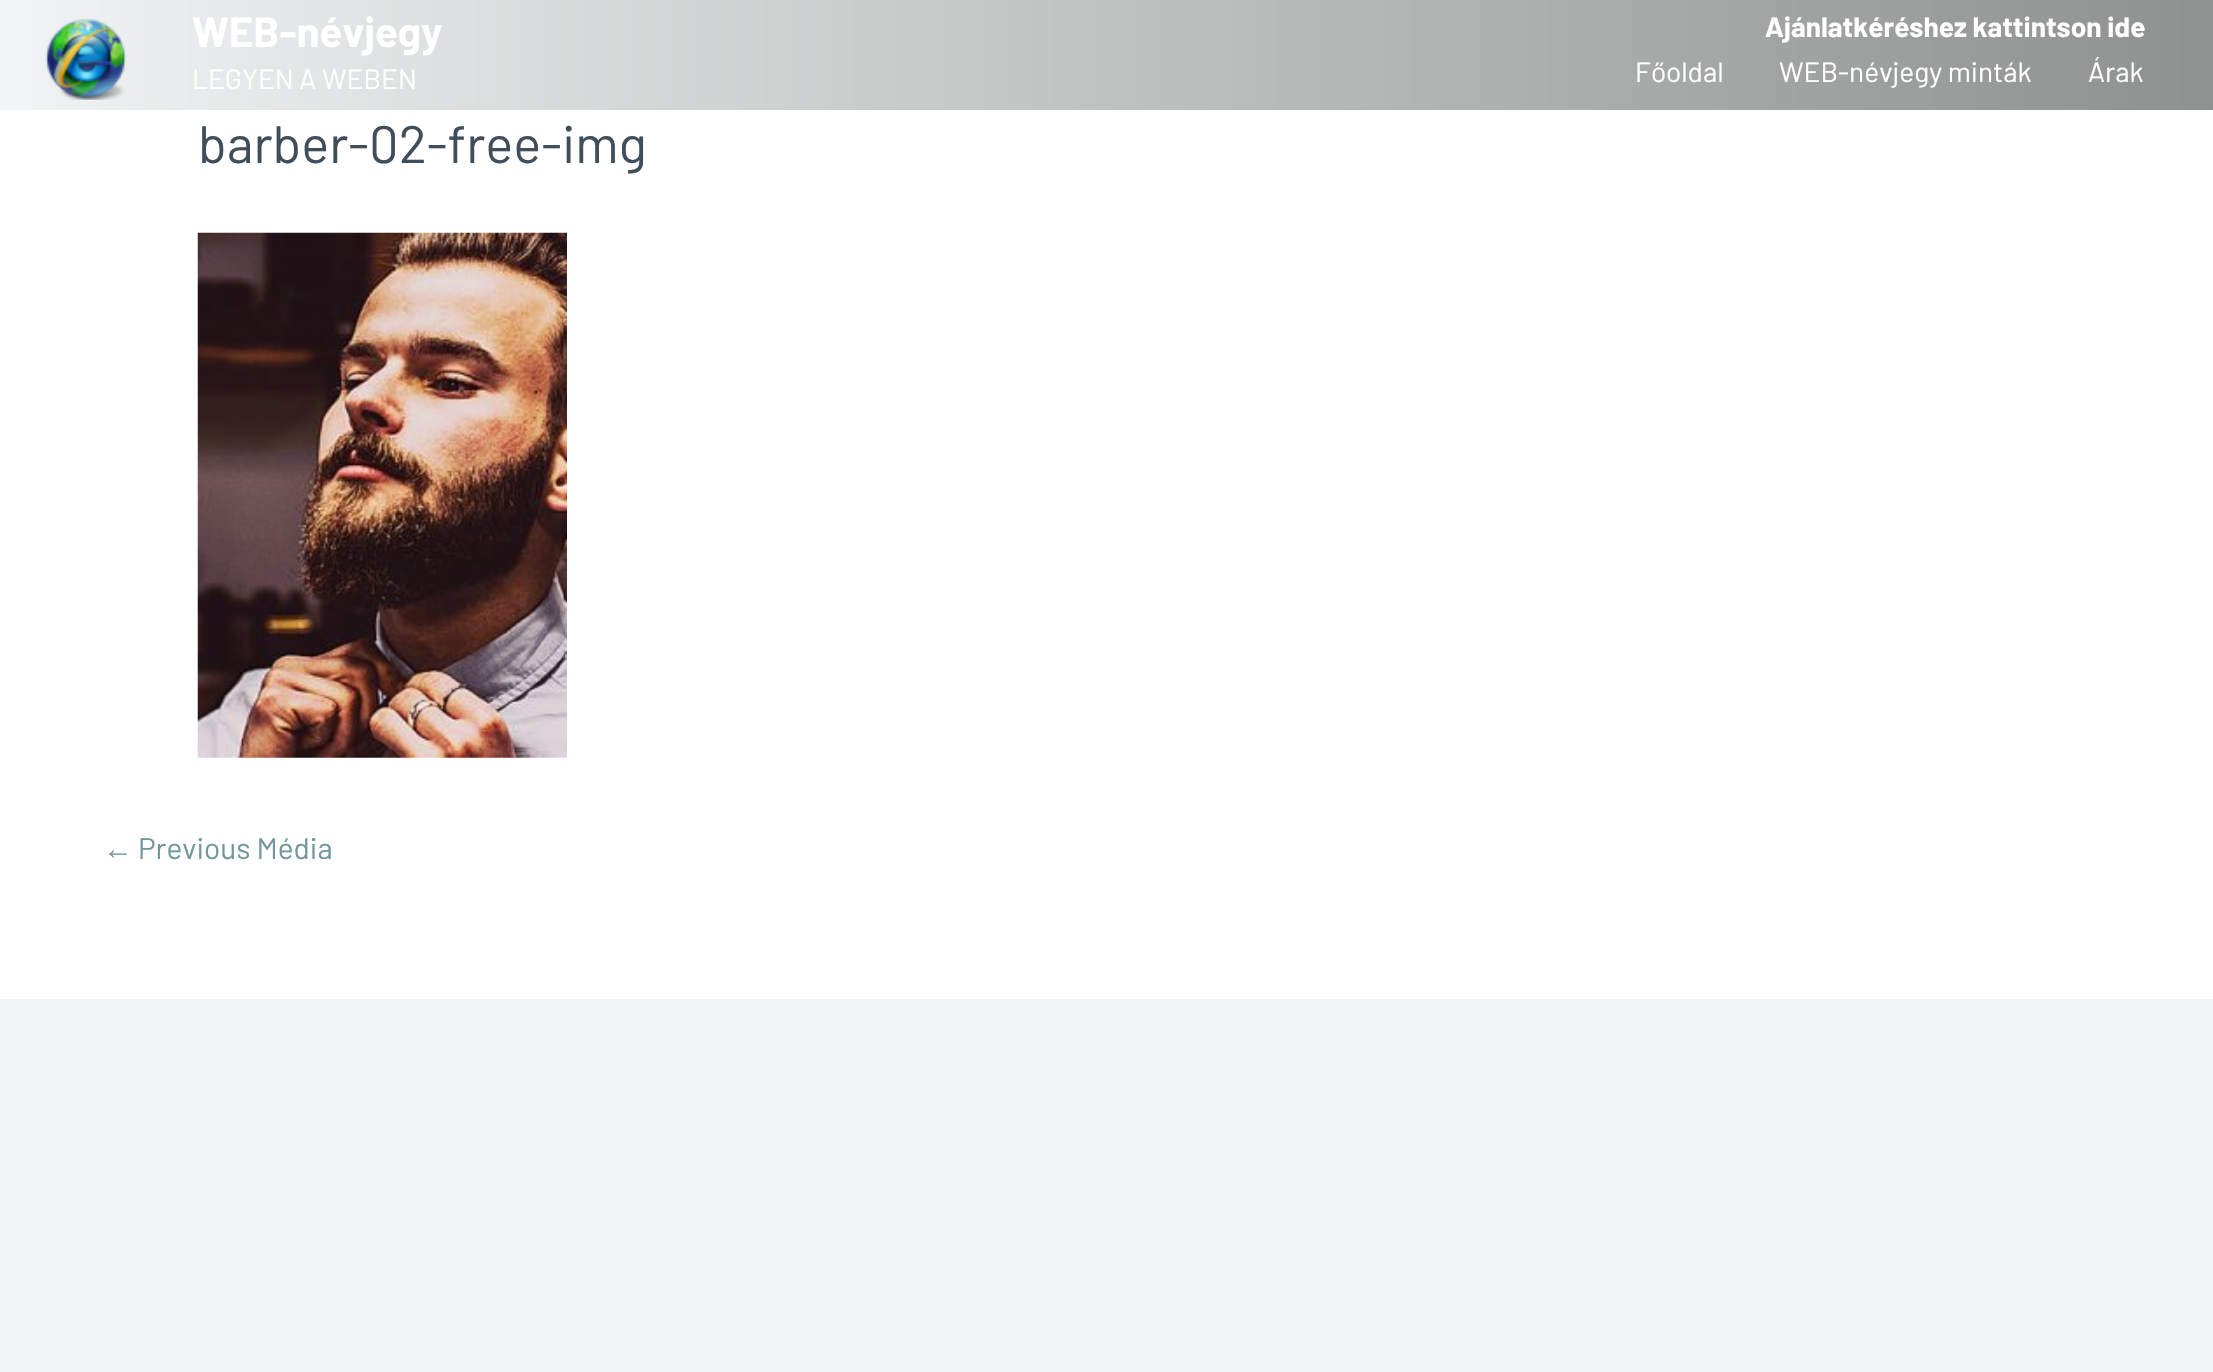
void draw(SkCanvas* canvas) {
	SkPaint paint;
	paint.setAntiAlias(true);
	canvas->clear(0xfff2f3f5);
	{
		const SkColor colors[] = {0xfff1f4f4, 0xff8f9090};
		const float stops[] = {0, 1};
		const SkPoint ends[] = {{0, 55}, {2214, 55}};
		paint.setShader(SkGradientShader::MakeLinear(ends, colors, stops, 2, SkTileMode::kClamp));
		paint.setAlpha(255);
	}
	canvas->drawRect(SkRect::MakeXYWH(33, 0, 2180, 110), paint);
	canvas->drawImageRect(SkImages::DeferredFromEncodedData(SkData::MakeFromFileName("img1.png")), SkRect::MakeXYWH(45, 18, 82, 82), SkSamplingOptions());
	SkFont f1(fontMgr->matchFamilyStyle("Barlow", SkFontStyle::Bold()), 42);
	f1.setSubpixel(true);
	paint.setShader(nullptr);
	paint.setColor(0xffffffff);
	canvas->drawString("WEB-névjegy", 192, 47, f1, paint);
	SkFont f2(fontMgr->matchFamilyStyle("Barlow", SkFontStyle::Normal()), 28);
	f2.setSubpixel(true);
	canvas->drawString("LEGYEN A WEBEN", 192, 89, f2, paint);
	SkFont f3(fontMgr->matchFamilyStyle("Barlow", SkFontStyle::Bold()), 28);
	f3.setSubpixel(true);
	canvas->drawString("Ajánlatkéréshez kattintson ide", 1765, 37, f3, paint);
	canvas->drawString("Főoldal", 1635, 82, f2, paint);
	canvas->drawString("WEB-névjegy minták", 1779, 82, f2, paint);
	canvas->drawString("Árak", 2088, 82, f2, paint);
	canvas->drawRect(SkRect::MakeXYWH(0, 110, 2213, 889), paint);
	SkFont f4(fontMgr->matchFamilyStyle("Barlow", SkFontStyle::Normal()), 52.5);
	f4.setSubpixel(true);
	paint.setColor(0xff404e5c);
	canvas->drawString("barber-02-free-img", 198, 163, f4, paint);
	canvas->drawImageRect(SkImages::DeferredFromEncodedData(SkData::MakeFromFileName("img2.png")), SkRect::MakeXYWH(197, 232, 370, 526), SkSamplingOptions());
	SkFont f5(fontMgr->matchFamilyStyle("Liberation Sans", SkFontStyle::Normal()), 29.75);
	f5.setSubpixel(true);
	paint.setColor(0xff71979c);
	canvas->drawString("←", 103, 859, f5, paint);
	SkFont f6(fontMgr->matchFamilyStyle("Barlow", SkFontStyle::Normal()), 29.75);
	f6.setSubpixel(true);
	canvas->drawString("Previous Média", 138, 859, f6, paint);
}
